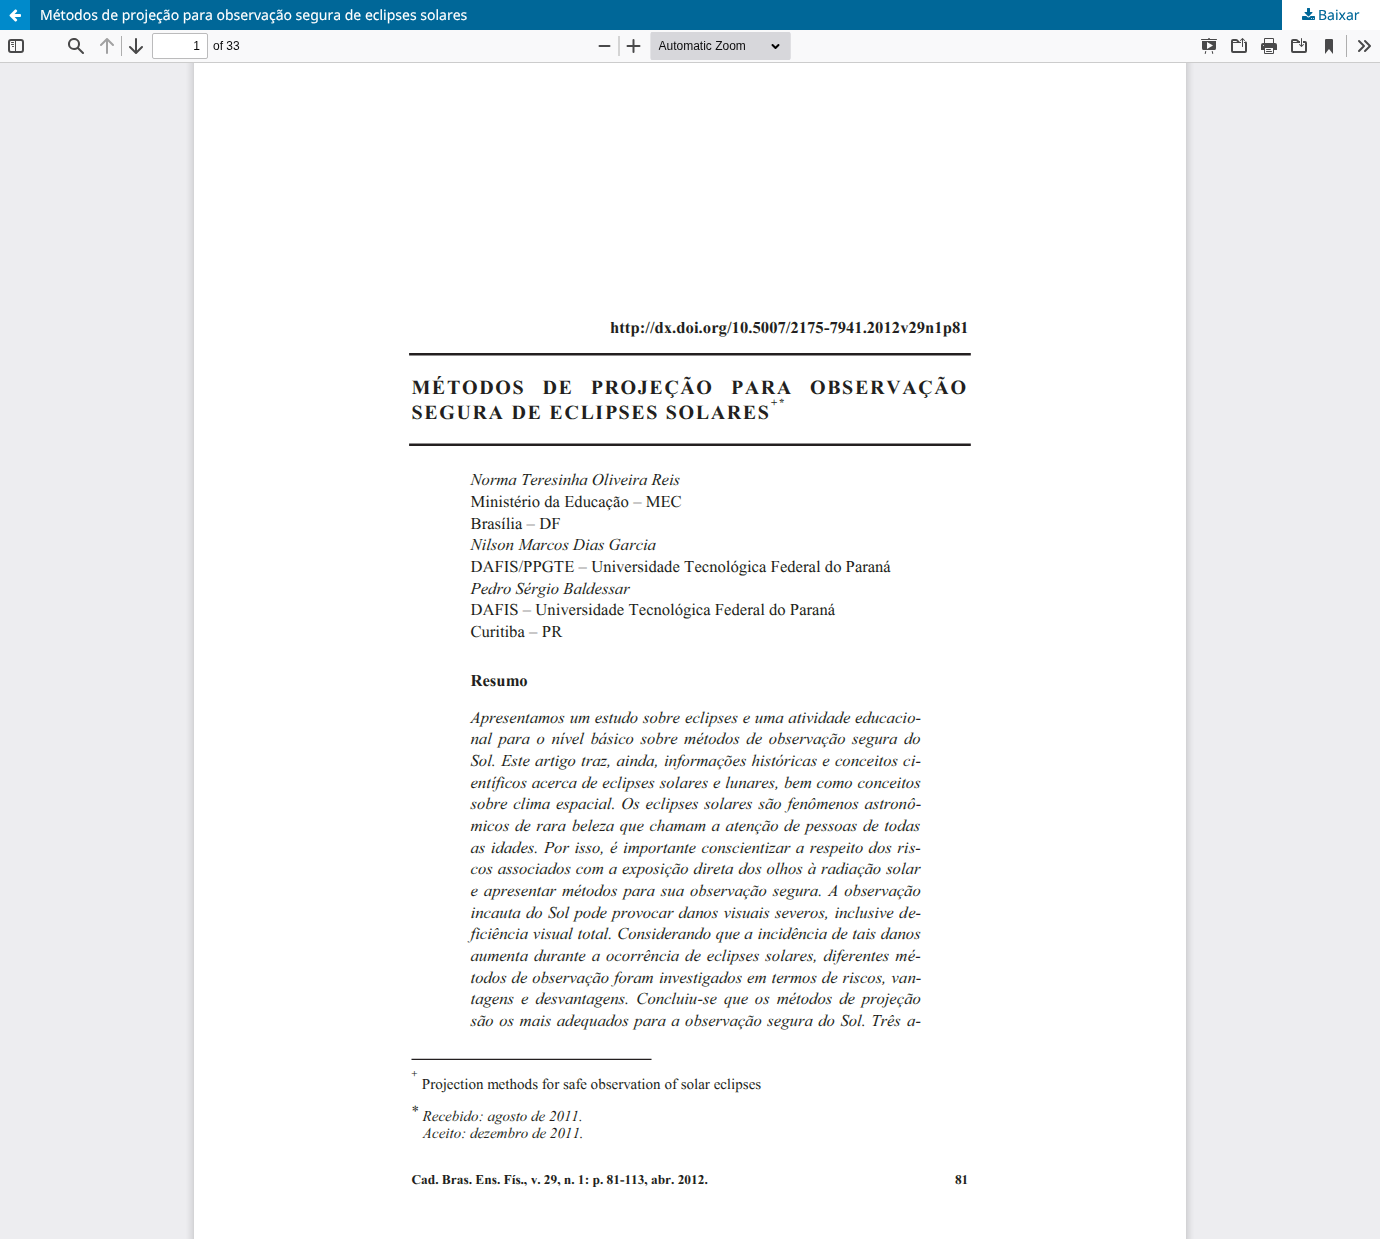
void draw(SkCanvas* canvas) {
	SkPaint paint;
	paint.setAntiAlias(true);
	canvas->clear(0xffffffff);
	paint.setColor(0xff006798);
	canvas->drawRect(SkRect::MakeXYWH(30, 0, 1252, 30), paint);
	paint.setColor(0xff008acb);
	canvas->drawRect(SkRect::MakeXYWH(0, 0, 30, 30), paint);
	canvas->drawImageRect(SkImages::DeferredFromEncodedData(SkData::MakeFromFileName("img1.png")), SkRect::MakeXYWH(9, 9, 12, 13), SkSamplingOptions());
	SkFont f1(fontMgr->matchFamilyStyle("Noto Sans", SkFontStyle::Normal()), 14);
	f1.setSubpixel(true);
	paint.setColor(0xffffffff);
	canvas->drawString("Métodos de projeção para observação segura de eclipses solares", 40, 20, f1, paint);
	canvas->drawImageRect(SkImages::DeferredFromEncodedData(SkData::MakeFromFileName("img2.png")), SkRect::MakeXYWH(1302, 8, 13, 12), SkSamplingOptions());
	paint.setColor(0xff006798);
	canvas->drawString("Baixar", 1318, 20, f1, paint);
	canvas->drawImageRect(SkImages::DeferredFromEncodedData(SkData::MakeFromFileName("img3.png")), SkRect::MakeXYWH(0, 30, 1380, 1209), SkSamplingOptions());
}
